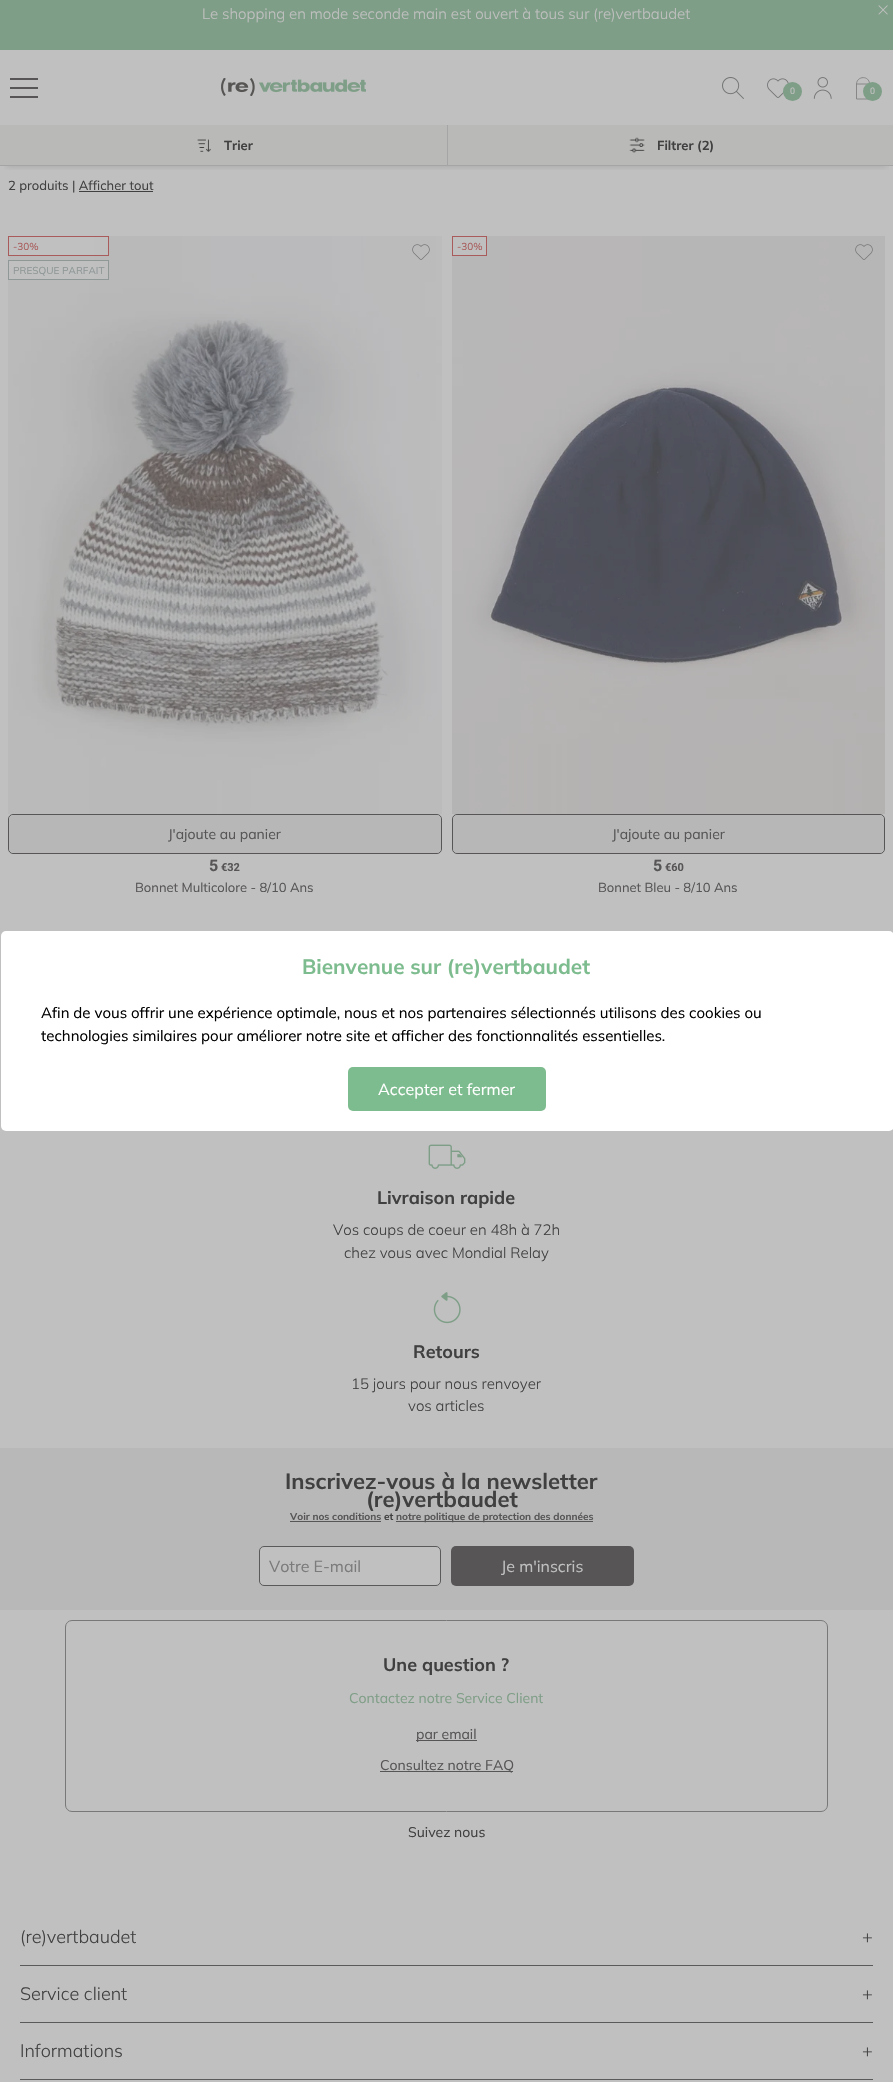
void draw(SkCanvas* canvas) {
	SkPaint paint;
	paint.setAntiAlias(true);
	auto svgPath = [&](const char* data, bool evenOdd = false) {
		SkPath result = *SkParsePath::FromSVGString(data);
		if (evenOdd) result.setFillType(SkPathFillType::kEvenOdd);
		return result;
	};
	canvas->clear(0xffc0c0c0);
	paint.setColor(0xff7f9e87);
	canvas->drawRect(SkRect::MakeXYWH(0, 0, 893, 50), paint);
	SkFont f1(fontMgr->matchFamilyStyle("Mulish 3", SkFontStyle(200, SkFontStyle::kNormal_Width, SkFontStyle::kUpright_Slant)), 15);
	f1.setSubpixel(true);
	paint.setColor(0xffc0c0c0);
	canvas->drawString("Le shopping en mode seconde main est ouvert à tous sur (re)vertbaudet", 202, 19, f1, paint);
	canvas->drawImageRect(SkImages::DeferredFromEncodedData(SkData::MakeFromFileName("img1.png")), SkRect::MakeXYWH(878, 5, 10, 10), SkSamplingOptions());
	paint.setColor(0xff575555);
	canvas->drawRect(SkRect::MakeXYWH(10, 87, 28, 2), paint);
	canvas->drawRect(SkRect::MakeXYWH(10, 78, 28, 2), paint);
	canvas->drawRect(SkRect::MakeXYWH(10, 96, 28, 2), paint);
	canvas->drawImageRect(SkImages::DeferredFromEncodedData(SkData::MakeFromFileName("img2.png")), SkRect::MakeXYWH(221, 78, 145, 18), SkSamplingOptions());
	canvas->drawImageRect(SkImages::DeferredFromEncodedData(SkData::MakeFromFileName("img3.png")), SkRect::MakeXYWH(722, 77, 22, 22), SkSamplingOptions());
	canvas->drawImageRect(SkImages::DeferredFromEncodedData(SkData::MakeFromFileName("img4.png")), SkRect::MakeXYWH(767, 78, 22, 20), SkSamplingOptions());
	paint.setColor(0xff7f9e87);
	canvas->drawCircle(792.5, 91.5, 9.5, paint);
	SkFont f2(fontMgr->matchFamilyStyle("Roboto", SkFontStyle::Normal()), 9);
	f2.setSubpixel(true);
	paint.setColor(0xffc0c0c0);
	canvas->drawString("0", 790, 94, f2, paint);
	canvas->drawImageRect(SkImages::DeferredFromEncodedData(SkData::MakeFromFileName("img5.png")), SkRect::MakeXYWH(813, 77, 19, 22), SkSamplingOptions());
	paint.setStroke(true);
	paint.setStrokeWidth(0.8);
	paint.setColor(0xff787878);
	canvas->drawPath(svgPath("M856.5 99V84H869.5V99ZM856.5 84C857 75.5 869.5 75.5 869.5 84"), paint);
	paint.setStroke(false);
	paint.setColor(0xff7f9e87);
	canvas->drawCircle(872.5, 91.5, 9.5, paint);
	paint.setColor(0xffc0c0c0);
	canvas->drawString("0", 870, 94, f2, paint);
	paint.setColor(0xffb9b9b8);
	canvas->drawRect(SkRect::MakeXYWH(0, 125, 893, 40), paint);
	canvas->save();
	canvas->clipRect(SkRect::MakeXYWH(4, 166, 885, 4));
	paint.setColor(0x29404040);
	paint.setMaskFilter(SkMaskFilter::MakeBlur(kNormal_SkBlurStyle, 3));
	canvas->drawRect(SkRect::MakeXYWH(6, 138, 881, 29), paint);
	paint.setMaskFilter(nullptr);
	canvas->restore();
	paint.setColor(0xffa6a5a5);
	canvas->drawRect(SkRect::MakeXYWH(0, 165, 893, 1), paint);
	canvas->drawImageRect(SkImages::DeferredFromEncodedData(SkData::MakeFromFileName("img6.png")), SkRect::MakeXYWH(197, 139, 14, 13), SkSamplingOptions());
	SkFont f3(fontMgr->matchFamilyStyle("Mulish", SkFontStyle(200, SkFontStyle::kNormal_Width, SkFontStyle::kUpright_Slant)), 13);
	f3.setSubpixel(true);
	paint.setColor(0xff404040);
	canvas->drawString("Trier", 224, 150, f3, paint);
	paint.setColor(0xffa6a5a5);
	canvas->drawRect(SkRect::MakeXYWH(447, 125, 1, 40), paint);
	canvas->drawImageRect(SkImages::DeferredFromEncodedData(SkData::MakeFromFileName("img7.png")), SkRect::MakeXYWH(629, 137, 16, 16), SkSamplingOptions());
	paint.setColor(0xff404040);
	canvas->drawString("Filtrer (2)", 657, 150, f3, paint);
	SkFont f4(fontMgr->matchFamilyStyle("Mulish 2", SkFontStyle(200, SkFontStyle::kNormal_Width, SkFontStyle::kUpright_Slant)), 13);
	f4.setSubpixel(true);
	canvas->drawString("2 produits | Afficher tout", 8, 190, f4, paint);
	canvas->drawRect(SkRect::MakeXYWH(79, 191, 74, 1), paint);
	canvas->drawImageRect(SkImages::DeferredFromEncodedData(SkData::MakeFromFileName("img8.png")), SkRect::MakeXYWH(8, 236, 434, 578), SkSamplingOptions());
	paint.setColor(0xccc0c0c0);
	canvas->drawRect(SkRect::MakeXYWH(8.5, 236.5, 100, 19), paint);
	paint.setStroke(true);
	paint.setStrokeWidth(1);
	paint.setColor(0xffa95b5b);
	canvas->drawRect(SkRect::MakeXYWH(8.5, 236.5, 100, 19), paint);
	SkFont f5(fontMgr->matchFamilyStyle("Mulish 2", SkFontStyle(200, SkFontStyle::kNormal_Width, SkFontStyle::kUpright_Slant)), 10);
	f5.setSubpixel(true);
	paint.setStroke(false);
	canvas->drawString("-30%", 13, 250, f5, paint);
	paint.setColor(0xccc0c0c0);
	canvas->drawRect(SkRect::MakeXYWH(8.5, 260.5, 100, 19), paint);
	paint.setStroke(true);
	paint.setColor(0xff8f9797);
	canvas->drawRect(SkRect::MakeXYWH(8.5, 260.5, 100, 19), paint);
	paint.setStroke(false);
	canvas->drawString("PRESQUE PARFAIT", 13, 274, f5, paint);
	paint.setStroke(true);
	paint.setColor(0xff575555);
	canvas->drawRoundRect(SkRect::MakeXYWH(8.5, 814.5, 433, 39), 4.5, 4.5, paint);
	paint.setStroke(false);
	paint.setColor(0xccb4b4b4);
	canvas->drawRoundRect(SkRect::MakeXYWH(9, 815, 432, 38), 5, 5, paint);
	SkFont f6(fontMgr->matchFamilyStyle("Mulish 2", SkFontStyle(200, SkFontStyle::kNormal_Width, SkFontStyle::kUpright_Slant)), 14);
	f6.setSubpixel(true);
	paint.setColor(0xff575555);
	canvas->drawString("J'ajoute au panier", 168, 839, f6, paint);
	SkFont f7(fontMgr->matchFamilyStyle("Roboto", SkFontStyle::Bold()), 16);
	f7.setSubpixel(true);
	canvas->drawString("5", 209, 871, f7, paint);
	SkFont f8(fontMgr->matchFamilyStyle("Roboto", SkFontStyle::Bold()), 11);
	f8.setSubpixel(true);
	canvas->drawString("€32", 221, 871, f8, paint);
	canvas->drawString("Bonnet Multicolore - 8/10 Ans", 135, 892, f4, paint);
	canvas->drawImageRect(SkImages::DeferredFromEncodedData(SkData::MakeFromFileName("img9.png")), SkRect::MakeXYWH(412, 244, 18, 16), SkSamplingOptions());
	canvas->drawImageRect(SkImages::DeferredFromEncodedData(SkData::MakeFromFileName("img10.png")), SkRect::MakeXYWH(452, 236, 433, 578), SkSamplingOptions());
	paint.setColor(0xccc0c0c0);
	canvas->drawRect(SkRect::MakeXYWH(452.5, 236.5, 34, 19), paint);
	paint.setStroke(true);
	paint.setColor(0xffa95b5b);
	canvas->drawRect(SkRect::MakeXYWH(452.5, 236.5, 34, 19), paint);
	paint.setStroke(false);
	canvas->drawString("-30%", 457, 250, f5, paint);
	paint.setStroke(true);
	paint.setColor(0xff575555);
	canvas->drawRoundRect(SkRect::MakeXYWH(452.5, 814.5, 432, 39), 4.5, 4.5, paint);
	paint.setStroke(false);
	paint.setColor(0xccb4b4b4);
	canvas->drawRoundRect(SkRect::MakeXYWH(453, 815, 431, 38), 5, 5, paint);
	paint.setColor(0xff575555);
	canvas->drawString("J'ajoute au panier", 612, 839, f6, paint);
	canvas->drawString("5", 653, 871, f7, paint);
	canvas->drawString("€60", 665, 871, f8, paint);
	canvas->drawString("Bonnet Bleu - 8/10 Ans", 598, 892, f4, paint);
	canvas->drawImageRect(SkImages::DeferredFromEncodedData(SkData::MakeFromFileName("img11.png")), SkRect::MakeXYWH(855, 244, 18, 16), SkSamplingOptions());
	canvas->drawImageRect(SkImages::DeferredFromEncodedData(SkData::MakeFromFileName("img12.png")), SkRect::MakeXYWH(428, 1144, 38, 25), SkSamplingOptions());
	SkFont f9(fontMgr->matchFamilyStyle("Mulish", SkFontStyle(200, SkFontStyle::kNormal_Width, SkFontStyle::kUpright_Slant)), 18);
	f9.setSubpixel(true);
	paint.setColor(0xff404040);
	canvas->drawString("Livraison rapide", 377, 1204, f9, paint);
	canvas->drawString("Vos coups de coeur en 48h à 72h", 333, 1235, f1, paint);
	canvas->drawString("chez vous avec Mondial Relay", 344, 1258, f1, paint);
	canvas->drawImageRect(SkImages::DeferredFromEncodedData(SkData::MakeFromFileName("img13.png")), SkRect::MakeXYWH(433, 1292, 28, 32), SkSamplingOptions());
	canvas->drawString("Retours", 413, 1358, f9, paint);
	canvas->drawString("15 jours pour nous renvoyer", 351, 1389, f1, paint);
	canvas->drawString("vos articles", 408, 1411, f1, paint);
	paint.setColor(0xffffffff);
	canvas->drawRoundRect(SkRect::MakeXYWH(1, 931, 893, 200), 5, 5, paint);
	SkFont f10(fontMgr->matchFamilyStyle("Mulish", SkFontStyle(200, SkFontStyle::kNormal_Width, SkFontStyle::kUpright_Slant)), 20.75);
	f10.setSubpixel(true);
	paint.setColor(0xff7dbc8e);
	canvas->drawString("Bienvenue sur (re)vertbaudet", 302, 974, f10, paint);
	SkFont f11(fontMgr->matchFamilyStyle("Mulish 2", SkFontStyle(200, SkFontStyle::kNormal_Width, SkFontStyle::kUpright_Slant)), 15);
	f11.setSubpixel(true);
	paint.setColor(0xff000000);
	canvas->drawString("Afin de vous offrir une expérience optimale, nous et nos partenaires sélectionnés utilisons des cookies ou", 41, 1018, f11, paint);
	canvas->drawString("technologies similaires pour améliorer notre site et afficher des fonctionnalités essentielles.", 41, 1041, f11, paint);
	paint.setColor(0xff7dbc8e);
	canvas->drawRoundRect(SkRect::MakeXYWH(348, 1067, 198, 44), 5, 5, paint);
	SkFont f12(fontMgr->matchFamilyStyle("Mulish 2", SkFontStyle(200, SkFontStyle::kNormal_Width, SkFontStyle::kUpright_Slant)), 16);
	f12.setSubpixel(true);
	paint.setColor(0xffffffff);
	canvas->drawString("Accepter et fermer", 378, 1095, f12, paint);
	paint.setColor(0xffb8b8b8);
	canvas->drawRect(SkRect::MakeXYWH(0, 1448, 893, 162), paint);
	SkFont f13(fontMgr->matchFamilyStyle("Mulish", SkFontStyle(200, SkFontStyle::kNormal_Width, SkFontStyle::kUpright_Slant)), 22);
	f13.setSubpixel(true);
	paint.setColor(0xff404040);
	canvas->drawString("Inscrivez-vous à la newsletter", 285, 1489, f13, paint);
	canvas->drawString("(re)vertbaudet", 366, 1507, f13, paint);
	SkFont f14(fontMgr->matchFamilyStyle("Mulish", SkFontStyle(200, SkFontStyle::kNormal_Width, SkFontStyle::kUpright_Slant)), 10);
	f14.setSubpixel(true);
	paint.setColor(0xff575555);
	canvas->drawString("Voir nos conditions", 290, 1520, f14, paint);
	canvas->drawRect(SkRect::MakeXYWH(290, 1521, 91, 1), paint);
	paint.setColor(0xff404040);
	canvas->drawString("et", 384, 1520, f14, paint);
	paint.setColor(0xff575555);
	canvas->drawRect(SkRect::MakeXYWH(396, 1521, 197, 1), paint);
	canvas->drawString("notre politique de protection des données", 396, 1520, f14, paint);
	paint.setColor(0xffc0c0c0);
	canvas->drawRoundRect(SkRect::MakeXYWH(259.5, 1546.5, 181, 39), 4.5, 4.5, paint);
	paint.setStroke(true);
	paint.setColor(0xff5a5a5a);
	canvas->drawRoundRect(SkRect::MakeXYWH(259.5, 1546.5, 181, 39), 4.5, 4.5, paint);
	paint.setStroke(false);
	paint.setColor(0xff7b7b7b);
	canvas->drawString("Votre E-mail", 269, 1572, f12, paint);
	paint.setColor(0xff575555);
	canvas->drawRoundRect(SkRect::MakeXYWH(451, 1546, 183, 40), 5, 5, paint);
	paint.setColor(0xffc0c0c0);
	canvas->drawString("Je m'inscris", 501, 1572, f12, paint);
	paint.setStroke(true);
	paint.setColor(0xff787878);
	canvas->drawRoundRect(SkRect::MakeXYWH(65.5, 1620.5, 762, 191), 6.5, 6.5, paint);
	paint.setStroke(false);
	paint.setColor(0xff404040);
	canvas->drawString("Une question ?", 383, 1671, f9, paint);
	paint.setColor(0xff7f9e87);
	canvas->drawString("Contactez notre Service Client", 349, 1703, f6, paint);
	paint.setColor(0xff575555);
	canvas->drawRect(SkRect::MakeXYWH(416, 1740, 61, 1), paint);
	canvas->drawString("par email", 416, 1739, f6, paint);
	canvas->drawRect(SkRect::MakeXYWH(380, 1771, 133, 1), paint);
	canvas->drawString("Consultez notre FAQ", 380, 1770, f6, paint);
	paint.setColor(0xff404040);
	canvas->drawString("Suivez nous", 408, 1837, f6, paint);
	paint.setColor(0xff5a5a5a);
	canvas->drawRect(SkRect::MakeXYWH(20, 1965, 853, 1), paint);
	SkFont f15(fontMgr->matchFamilyStyle("Mulish 3", SkFontStyle(200, SkFontStyle::kNormal_Width, SkFontStyle::kUpright_Slant)), 18);
	f15.setSubpixel(true);
	paint.setColor(0xff404040);
	canvas->drawString("(re)vertbaudet", 20, 1943, f15, paint);
	canvas->drawString("+", 862, 1943, f15, paint);
	paint.setColor(0xff5a5a5a);
	canvas->drawRect(SkRect::MakeXYWH(20, 2022, 853, 1), paint);
	paint.setColor(0xff404040);
	canvas->drawString("Service client", 20, 2000, f15, paint);
	canvas->drawString("+", 862, 2000, f15, paint);
	paint.setColor(0xff5a5a5a);
	canvas->drawRect(SkRect::MakeXYWH(20, 2079, 853, 1), paint);
	paint.setColor(0xff404040);
	canvas->drawString("Informations", 20, 2057, f15, paint);
	canvas->drawString("+", 862, 2057, f15, paint);
}
